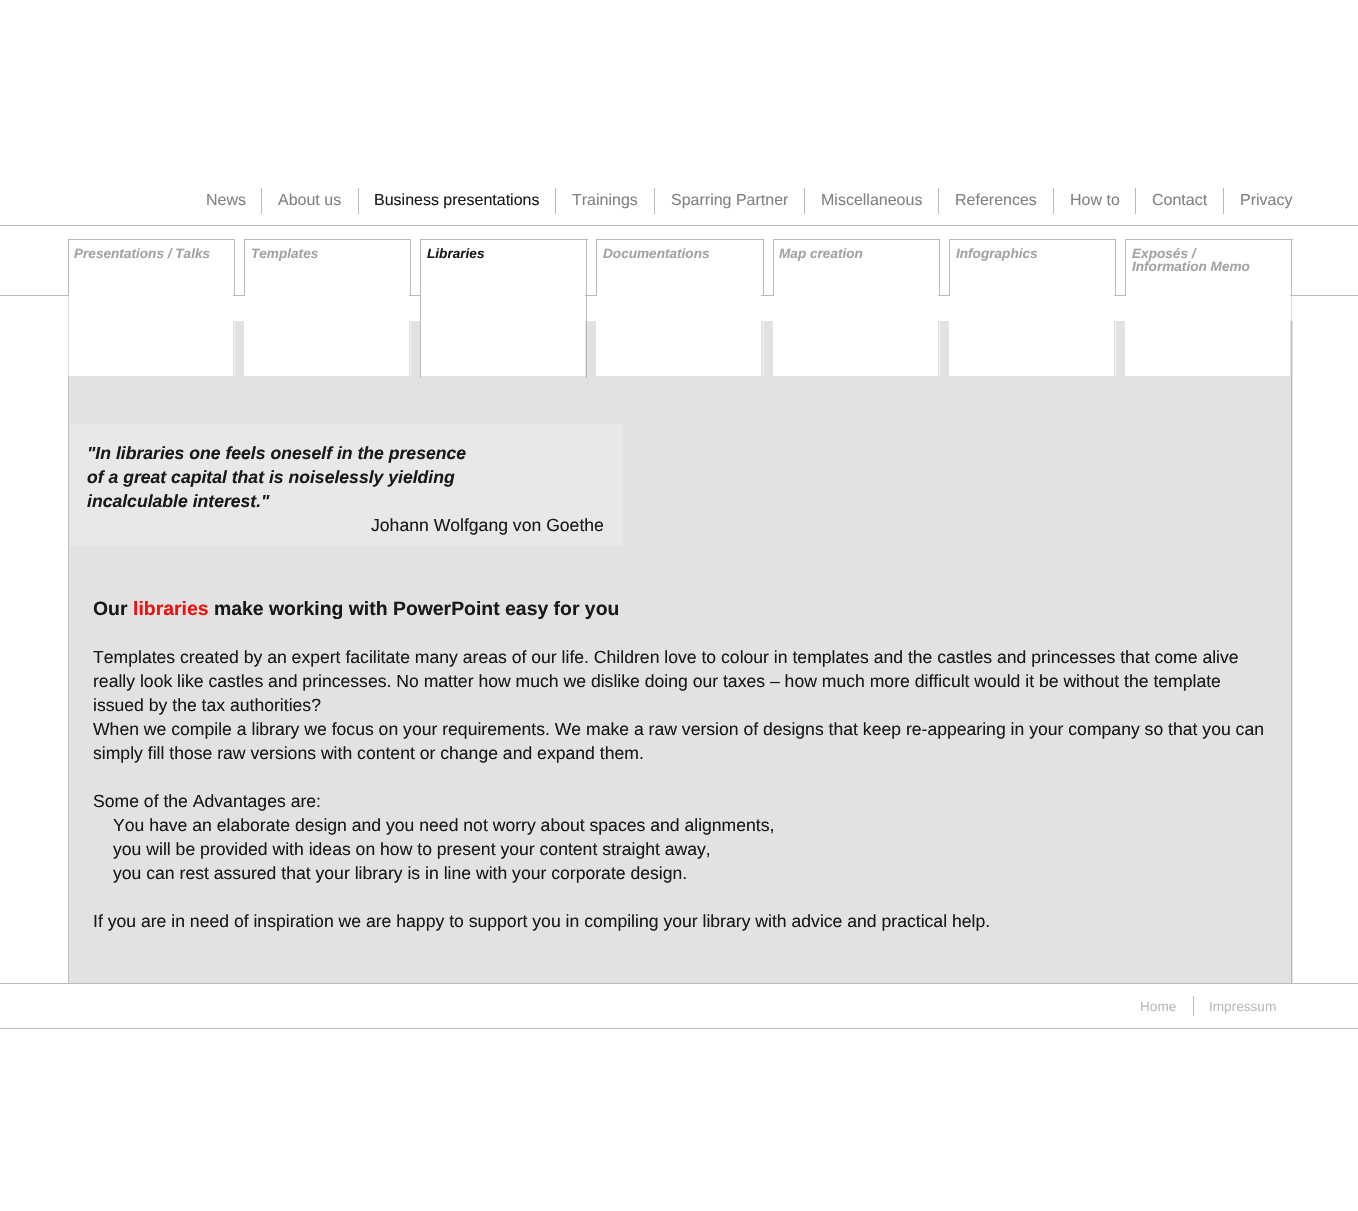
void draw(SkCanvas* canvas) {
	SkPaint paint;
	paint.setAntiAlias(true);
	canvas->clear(0xffffffff);
	paint.setColor(0xffdddddd);
	canvas->drawRect(SkRect::MakeXYWH(1291, 296, 1, 25), paint);
	paint.setColor(0xffbbbbbb);
	canvas->drawRect(SkRect::MakeXYWH(0, 225, 1358, 1), paint);
	SkFont f1(fontMgr->matchFamilyStyle("Liberation Sans", SkFontStyle::Normal()), 16);
	f1.setSubpixel(true);
	paint.setColor(0xff828282);
	canvas->drawString("News", 206, 205, f1, paint);
	paint.setColor(0xffbbbbbb);
	canvas->drawRect(SkRect::MakeXYWH(261, 188, 1, 26), paint);
	paint.setColor(0xff828282);
	canvas->drawString("About us", 278, 205, f1, paint);
	paint.setColor(0xffbbbbbb);
	canvas->drawRect(SkRect::MakeXYWH(358, 188, 1, 26), paint);
	paint.setColor(0xff191919);
	canvas->drawString("Business presentations", 374, 205, f1, paint);
	paint.setColor(0xffbbbbbb);
	canvas->drawRect(SkRect::MakeXYWH(555, 188, 1, 26), paint);
	paint.setColor(0xff828282);
	canvas->drawString("Trainings", 572, 205, f1, paint);
	paint.setColor(0xffbbbbbb);
	canvas->drawRect(SkRect::MakeXYWH(654, 188, 1, 26), paint);
	paint.setColor(0xff828282);
	canvas->drawString("Sparring Partner", 671, 205, f1, paint);
	paint.setColor(0xffbbbbbb);
	canvas->drawRect(SkRect::MakeXYWH(804, 188, 1, 26), paint);
	paint.setColor(0xff828282);
	canvas->drawString("Miscellaneous", 821, 205, f1, paint);
	paint.setColor(0xffbbbbbb);
	canvas->drawRect(SkRect::MakeXYWH(938, 188, 1, 26), paint);
	paint.setColor(0xff828282);
	canvas->drawString("References", 955, 205, f1, paint);
	paint.setColor(0xffbbbbbb);
	canvas->drawRect(SkRect::MakeXYWH(1053, 188, 1, 26), paint);
	paint.setColor(0xff828282);
	canvas->drawString("How to", 1070, 205, f1, paint);
	paint.setColor(0xffbbbbbb);
	canvas->drawRect(SkRect::MakeXYWH(1135, 188, 1, 26), paint);
	paint.setColor(0xff828282);
	canvas->drawString("Contact", 1152, 205, f1, paint);
	paint.setColor(0xffbbbbbb);
	canvas->drawRect(SkRect::MakeXYWH(1223, 188, 1, 26), paint);
	paint.setColor(0xff828282);
	canvas->drawString("Privacy", 1240, 205, f1, paint);
	paint.setColor(0xffbbbbbb);
	canvas->drawRect(SkRect::MakeXYWH(0, 295, 1358, 1), paint);
	paint.setColor(0xffe2e2e2);
	canvas->drawRect(SkRect::MakeXYWH(69, 321, 1224, 662), paint);
	paint.setColor(0xffffffff);
	canvas->drawRect(SkRect::MakeXYWH(69, 295, 164, 81), paint);
	paint.setColor(0xffdddddd);
	canvas->drawRect(SkRect::MakeXYWH(68, 296, 1, 80), paint);
	paint.setColor(0xffbbbbbb);
	canvas->drawRect(SkRect::MakeXYWH(68, 239, 167, 1), paint);
	canvas->drawRect(SkRect::MakeXYWH(234, 239, 1, 57), paint);
	canvas->drawRect(SkRect::MakeXYWH(68, 239, 1, 57), paint);
	SkFont f2(fontMgr->matchFamilyStyle("Liberation Sans", SkFontStyle::BoldItalic()), 13.6);
	f2.setSubpixel(true);
	paint.setColor(0xffa3a3a3);
	canvas->drawString("Presentations / Talks", 74, 258, f2, paint);
	paint.setColor(0xffffffff);
	canvas->drawRect(SkRect::MakeXYWH(245, 295, 164, 81), paint);
	canvas->drawRect(SkRect::MakeXYWH(244, 321, 1, 55), paint);
	paint.setColor(0xffbbbbbb);
	canvas->drawRect(SkRect::MakeXYWH(244, 239, 167, 1), paint);
	canvas->drawRect(SkRect::MakeXYWH(410, 239, 1, 57), paint);
	canvas->drawRect(SkRect::MakeXYWH(244, 239, 1, 57), paint);
	paint.setColor(0xffa3a3a3);
	canvas->drawString("Templates", 251, 258, f2, paint);
	paint.setColor(0xffffffff);
	canvas->drawRect(SkRect::MakeXYWH(421, 295, 164, 81), paint);
	paint.setColor(0xffbbbbbb);
	canvas->drawRect(SkRect::MakeXYWH(420, 239, 168, 1), paint);
	canvas->drawRect(SkRect::MakeXYWH(586, 239, 1, 139), paint);
	canvas->drawRect(SkRect::MakeXYWH(420, 239, 1, 139), paint);
	paint.setColor(0xff191919);
	canvas->drawString("Libraries", 427, 258, f2, paint);
	paint.setColor(0xffffffff);
	canvas->drawRect(SkRect::MakeXYWH(597, 295, 164, 81), paint);
	canvas->drawRect(SkRect::MakeXYWH(596, 321, 1, 55), paint);
	paint.setColor(0xffbbbbbb);
	canvas->drawRect(SkRect::MakeXYWH(596, 239, 168, 1), paint);
	canvas->drawRect(SkRect::MakeXYWH(763, 239, 1, 57), paint);
	canvas->drawRect(SkRect::MakeXYWH(596, 239, 1, 57), paint);
	paint.setColor(0xffa3a3a3);
	canvas->drawString("Documentations", 603, 258, f2, paint);
	paint.setColor(0xffffffff);
	canvas->drawRect(SkRect::MakeXYWH(774, 295, 164, 81), paint);
	canvas->drawRect(SkRect::MakeXYWH(773, 321, 1, 55), paint);
	paint.setColor(0xffbbbbbb);
	canvas->drawRect(SkRect::MakeXYWH(773, 239, 167, 1), paint);
	canvas->drawRect(SkRect::MakeXYWH(939, 239, 1, 57), paint);
	canvas->drawRect(SkRect::MakeXYWH(773, 239, 1, 57), paint);
	paint.setColor(0xffa3a3a3);
	canvas->drawString("Map creation", 779, 258, f2, paint);
	paint.setColor(0xffffffff);
	canvas->drawRect(SkRect::MakeXYWH(950, 295, 164, 81), paint);
	canvas->drawRect(SkRect::MakeXYWH(949, 321, 1, 55), paint);
	paint.setColor(0xffbbbbbb);
	canvas->drawRect(SkRect::MakeXYWH(949, 239, 167, 1), paint);
	canvas->drawRect(SkRect::MakeXYWH(1115, 239, 1, 57), paint);
	canvas->drawRect(SkRect::MakeXYWH(949, 239, 1, 57), paint);
	paint.setColor(0xffa3a3a3);
	canvas->drawString("Infographics", 956, 258, f2, paint);
	paint.setColor(0xffffffff);
	canvas->drawRect(SkRect::MakeXYWH(1126, 295, 164, 81), paint);
	canvas->drawRect(SkRect::MakeXYWH(1125, 321, 1, 55), paint);
	paint.setColor(0xffbbbbbb);
	canvas->drawRect(SkRect::MakeXYWH(1125, 239, 168, 1), paint);
	canvas->drawRect(SkRect::MakeXYWH(1291, 239, 1, 57), paint);
	canvas->drawRect(SkRect::MakeXYWH(1125, 239, 1, 57), paint);
	paint.setColor(0xffa3a3a3);
	canvas->drawString("Exposés /", 1132, 258, f2, paint);
	canvas->drawString("Information Memo", 1132, 271, f2, paint);
	paint.setColor(0xfff1f1f1);
	canvas->drawRect(SkRect::MakeXYWH(1125, 376, 1, 2), paint);
	canvas->drawRect(SkRect::MakeXYWH(949, 376, 1, 2), paint);
	canvas->drawRect(SkRect::MakeXYWH(1115, 321, 1, 57), paint);
	canvas->drawRect(SkRect::MakeXYWH(773, 376, 1, 2), paint);
	canvas->drawRect(SkRect::MakeXYWH(939, 321, 1, 57), paint);
	canvas->drawRect(SkRect::MakeXYWH(596, 376, 1, 2), paint);
	canvas->drawRect(SkRect::MakeXYWH(763, 321, 1, 57), paint);
	canvas->drawRect(SkRect::MakeXYWH(244, 376, 1, 2), paint);
	canvas->drawRect(SkRect::MakeXYWH(410, 321, 1, 57), paint);
	canvas->drawRect(SkRect::MakeXYWH(234, 321, 1, 57), paint);
	paint.setColor(0xffbbbbbb);
	canvas->drawRect(SkRect::MakeXYWH(1291, 321, 1, 662), paint);
	canvas->drawRect(SkRect::MakeXYWH(68, 376, 1, 607), paint);
	paint.setColor(0xffe8e8e8);
	canvas->drawRect(SkRect::MakeXYWH(69, 424, 554, 122), paint);
	SkFont f3(fontMgr->matchFamilyStyle("Liberation Sans", SkFontStyle::BoldItalic()), 17.6);
	f3.setSubpixel(true);
	paint.setColor(0xff191919);
	canvas->drawString("\"In libraries one feels oneself in the presence", 87, 459, f3, paint);
	canvas->drawString("of a great capital that is noiselessly yielding", 87, 483, f3, paint);
	canvas->drawString("incalculable interest.\"", 87, 507, f3, paint);
	SkFont f4(fontMgr->matchFamilyStyle("Liberation Sans", SkFontStyle::Normal()), 17.6);
	f4.setSubpixel(true);
	canvas->drawString("Johann Wolfgang von Goethe", 371, 531, f4, paint);
	SkFont f5(fontMgr->matchFamilyStyle("Liberation Sans", SkFontStyle::Bold()), 19.4);
	f5.setSubpixel(true);
	canvas->drawString("Our", 93, 615, f5, paint);
	paint.setColor(0xffec1010);
	canvas->drawString("libraries", 133, 615, f5, paint);
	paint.setColor(0xff191919);
	canvas->drawString("make working with PowerPoint easy for you", 214, 615, f5, paint);
	canvas->drawString("Templates created by an expert facilitate many areas of our life. Children love to colour in templates and the castles and princesses that come alive", 93, 663, f4, paint);
	canvas->drawString("really look like castles and princesses. No matter how much we dislike doing our taxes – how much more difficult would it be without the template", 93, 687, f4, paint);
	canvas->drawString("issued by the tax authorities?", 93, 711, f4, paint);
	canvas->drawString("When we compile a library we focus on your requirements. We make a raw version of designs that keep re-appearing in your company so that you can", 93, 735, f4, paint);
	canvas->drawString("simply fill those raw versions with content or change and expand them.", 93, 759, f4, paint);
	canvas->drawString("Some of the Advantages are:", 93, 807, f4, paint);
	canvas->drawString("You have an elaborate design and you need not worry about spaces and alignments,", 113, 831, f4, paint);
	canvas->drawString("you will be provided with ideas on how to present your content straight away,", 113, 855, f4, paint);
	canvas->drawString("you can rest assured that your library is in line with your corporate design.", 113, 879, f4, paint);
	canvas->drawString("If you are in need of inspiration we are happy to support you in compiling your library with advice and practical help.", 93, 927, f4, paint);
	paint.setColor(0xffbbbbbb);
	canvas->drawRect(SkRect::MakeXYWH(0, 983, 1358, 1), paint);
	canvas->drawRect(SkRect::MakeXYWH(0, 1028, 1358, 1), paint);
	SkFont f6(fontMgr->matchFamilyStyle("Liberation Sans", SkFontStyle::Normal()), 13.6);
	f6.setSubpixel(true);
	canvas->drawString("Home", 1140, 1011, f6, paint);
	canvas->drawRect(SkRect::MakeXYWH(1193, 996, 1, 20), paint);
	canvas->drawString("Impressum", 1209, 1011, f6, paint);
}
